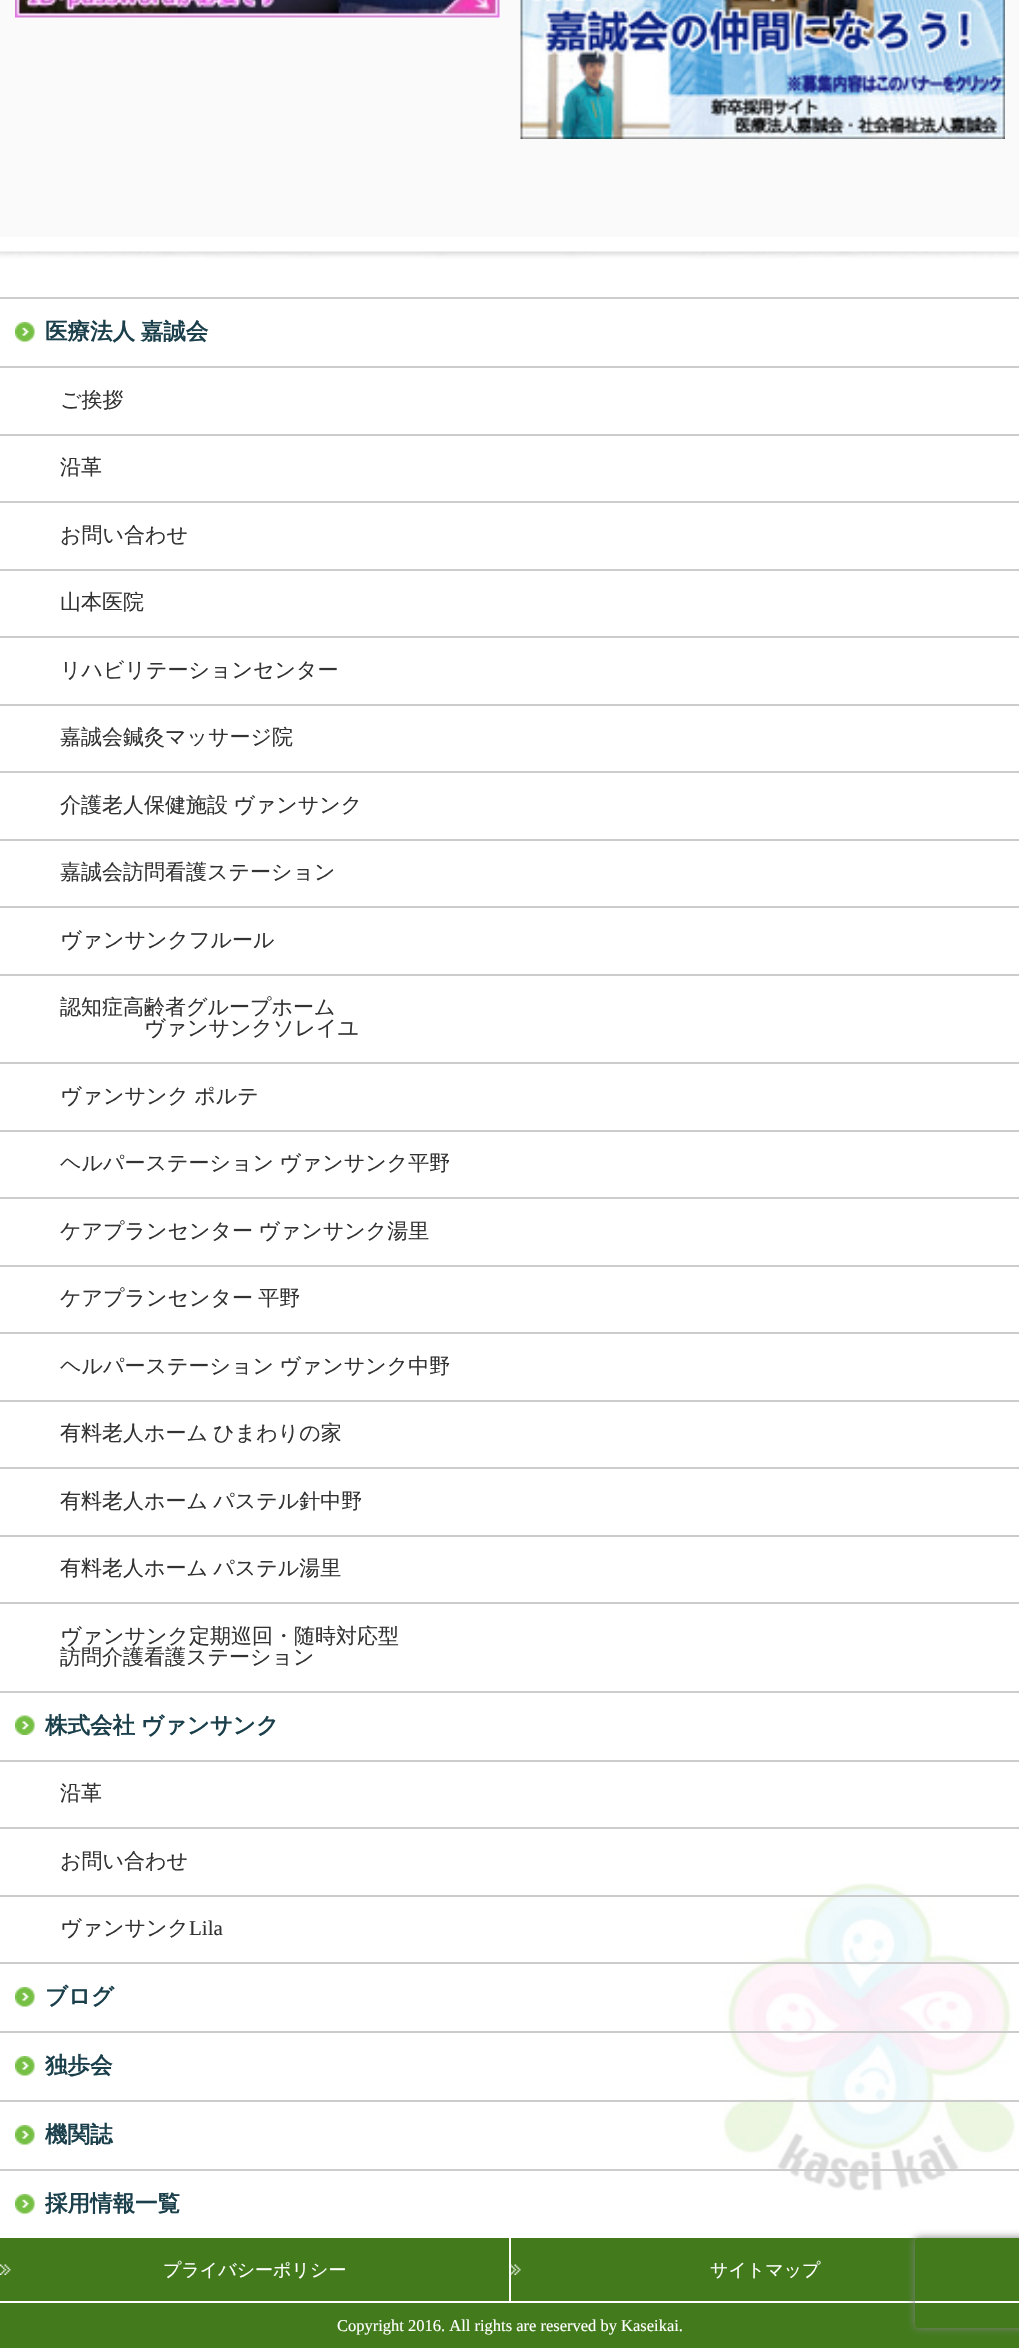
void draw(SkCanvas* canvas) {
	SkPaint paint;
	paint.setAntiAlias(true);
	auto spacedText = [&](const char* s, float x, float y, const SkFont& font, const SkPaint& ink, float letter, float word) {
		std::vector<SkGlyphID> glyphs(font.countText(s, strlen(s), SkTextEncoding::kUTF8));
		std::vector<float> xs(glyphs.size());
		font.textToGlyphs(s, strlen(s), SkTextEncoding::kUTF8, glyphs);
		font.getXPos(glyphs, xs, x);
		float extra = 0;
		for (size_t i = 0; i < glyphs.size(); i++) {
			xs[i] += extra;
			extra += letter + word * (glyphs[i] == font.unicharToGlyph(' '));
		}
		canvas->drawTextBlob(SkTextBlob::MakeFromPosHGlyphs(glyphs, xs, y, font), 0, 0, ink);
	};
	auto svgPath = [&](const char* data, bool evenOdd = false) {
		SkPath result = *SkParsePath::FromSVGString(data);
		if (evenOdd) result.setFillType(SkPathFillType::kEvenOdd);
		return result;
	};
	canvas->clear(0xffffffff);
	paint.setColor(0xfffafafa);
	canvas->drawRect(SkRect::MakeXYWH(0, 0, 1019, 237), paint);
	canvas->drawImageRect(SkImages::DeferredFromEncodedData(SkData::MakeFromFileName("img1.png")), SkRect::MakeXYWH(15, 0, 485, 18), SkSamplingOptions());
	canvas->drawImageRect(SkImages::DeferredFromEncodedData(SkData::MakeFromFileName("img2.png")), SkRect::MakeXYWH(520, 0, 485, 139), SkSamplingOptions());
	canvas->drawImageRect(SkImages::DeferredFromEncodedData(SkData::MakeFromFileName("img3.png")), SkRect::MakeXYWH(0, 251, 1019, 8), SkSamplingOptions());
	canvas->drawImageRect(SkImages::DeferredFromEncodedData(SkData::MakeFromFileName("img4.png")), SkRect::MakeXYWH(15, 322, 20, 20), SkSamplingOptions());
	paint.setColor(0xffcccccc);
	canvas->drawRect(SkRect::MakeXYWH(0, 297, 1019, 2), paint);
	SkFont f1(fontMgr->matchFamilyStyle("WenQuanYi Zen Hei", SkFontStyle::Bold()), 22.5);
	f1.setSubpixel(true);
	paint.setColor(0xff1b404c);
	spacedText("医療法人 嘉誠会", 45, 339, f1, paint, 0, -1);
	paint.setColor(0xffcccccc);
	canvas->drawRect(SkRect::MakeXYWH(0, 366, 1019, 2), paint);
	SkFont f2(fontMgr->matchFamilyStyle("WenQuanYi Zen Hei", SkFontStyle(500, SkFontStyle::kNormal_Width, SkFontStyle::kUpright_Slant)), 21);
	f2.setSubpixel(true);
	paint.setColor(0xff333333);
	canvas->drawString("ご挨拶", 60, 407, f2, paint);
	paint.setColor(0xffcccccc);
	canvas->drawRect(SkRect::MakeXYWH(0, 434, 1019, 2), paint);
	paint.setColor(0xff333333);
	canvas->drawString("沿革", 60, 474, f2, paint);
	paint.setColor(0xffcccccc);
	canvas->drawRect(SkRect::MakeXYWH(0, 501, 1019, 2), paint);
	paint.setColor(0xff333333);
	canvas->drawString("お問い合わせ", 60, 542, f2, paint);
	paint.setColor(0xffcccccc);
	canvas->drawRect(SkRect::MakeXYWH(0, 569, 1019, 2), paint);
	paint.setColor(0xff333333);
	canvas->drawString("山本医院", 60, 609, f2, paint);
	paint.setColor(0xffcccccc);
	canvas->drawRect(SkRect::MakeXYWH(0, 636, 1019, 2), paint);
	paint.setColor(0xff333333);
	canvas->drawString("リハビリテーションセンター", 60, 677, f2, paint);
	paint.setColor(0xffcccccc);
	canvas->drawRect(SkRect::MakeXYWH(0, 704, 1019, 2), paint);
	paint.setColor(0xff333333);
	canvas->drawString("嘉誠会鍼灸マッサージ院", 60, 744, f2, paint);
	paint.setColor(0xffcccccc);
	canvas->drawRect(SkRect::MakeXYWH(0, 771, 1019, 2), paint);
	paint.setColor(0xff333333);
	spacedText("介護老人保健施設 ヴァンサンク", 60, 812, f2, paint, 0, -1);
	paint.setColor(0xffcccccc);
	canvas->drawRect(SkRect::MakeXYWH(0, 839, 1019, 2), paint);
	paint.setColor(0xff333333);
	canvas->drawString("嘉誠会訪問看護ステーション", 60, 879, f2, paint);
	paint.setColor(0xffcccccc);
	canvas->drawRect(SkRect::MakeXYWH(0, 906, 1019, 2), paint);
	paint.setColor(0xff333333);
	canvas->drawString("ヴァンサンクフルール", 60, 947, f2, paint);
	paint.setColor(0xffcccccc);
	canvas->drawRect(SkRect::MakeXYWH(0, 974, 1019, 2), paint);
	paint.setColor(0xff333333);
	canvas->drawString("認知症高齢者グループホーム", 60, 1014, f2, paint);
	canvas->drawString("ヴァンサンクソレイユ", 144, 1035, f2, paint);
	paint.setColor(0xffcccccc);
	canvas->drawRect(SkRect::MakeXYWH(0, 1062, 1019, 2), paint);
	paint.setColor(0xff333333);
	spacedText("ヴァンサンク ポルテ", 60, 1103, f2, paint, 0, -1);
	paint.setColor(0xffcccccc);
	canvas->drawRect(SkRect::MakeXYWH(0, 1130, 1019, 2), paint);
	paint.setColor(0xff333333);
	spacedText("ヘルパーステーション ヴァンサンク平野", 60, 1170, f2, paint, 0, -1);
	paint.setColor(0xffcccccc);
	canvas->drawRect(SkRect::MakeXYWH(0, 1197, 1019, 2), paint);
	paint.setColor(0xff333333);
	spacedText("ケアプランセンター ヴァンサンク湯里", 60, 1238, f2, paint, 0, -1);
	paint.setColor(0xffcccccc);
	canvas->drawRect(SkRect::MakeXYWH(0, 1265, 1019, 2), paint);
	paint.setColor(0xff333333);
	spacedText("ケアプランセンター 平野", 60, 1305, f2, paint, 0, -1);
	paint.setColor(0xffcccccc);
	canvas->drawRect(SkRect::MakeXYWH(0, 1332, 1019, 2), paint);
	paint.setColor(0xff333333);
	spacedText("ヘルパーステーション ヴァンサンク中野", 60, 1373, f2, paint, 0, -1);
	paint.setColor(0xffcccccc);
	canvas->drawRect(SkRect::MakeXYWH(0, 1400, 1019, 2), paint);
	paint.setColor(0xff333333);
	spacedText("有料老人ホーム ひまわりの家", 60, 1440, f2, paint, 0, -1);
	paint.setColor(0xffcccccc);
	canvas->drawRect(SkRect::MakeXYWH(0, 1467, 1019, 2), paint);
	paint.setColor(0xff333333);
	spacedText("有料老人ホーム パステル針中野", 60, 1508, f2, paint, 0, -1);
	paint.setColor(0xffcccccc);
	canvas->drawRect(SkRect::MakeXYWH(0, 1535, 1019, 2), paint);
	paint.setColor(0xff333333);
	spacedText("有料老人ホーム パステル湯里", 60, 1575, f2, paint, 0, -1);
	paint.setColor(0xffcccccc);
	canvas->drawRect(SkRect::MakeXYWH(0, 1602, 1019, 2), paint);
	paint.setColor(0xff333333);
	canvas->drawString("ヴァンサンク定期巡回・随時対応型", 60, 1643, f2, paint);
	canvas->drawString("訪問介護看護ステーション", 60, 1664, f2, paint);
	canvas->drawImageRect(SkImages::DeferredFromEncodedData(SkData::MakeFromFileName("img5.png")), SkRect::MakeXYWH(15, 1715, 20, 20), SkSamplingOptions());
	paint.setColor(0xffcccccc);
	canvas->drawRect(SkRect::MakeXYWH(0, 1691, 1019, 2), paint);
	paint.setColor(0xff1b404c);
	spacedText("株式会社 ヴァンサンク", 45, 1733, f1, paint, 0, -1);
	paint.setColor(0xffcccccc);
	canvas->drawRect(SkRect::MakeXYWH(0, 1760, 1019, 2), paint);
	paint.setColor(0xff333333);
	canvas->drawString("沿革", 60, 1800, f2, paint);
	paint.setColor(0xffcccccc);
	canvas->drawRect(SkRect::MakeXYWH(0, 1827, 1019, 2), paint);
	paint.setColor(0xff333333);
	canvas->drawString("お問い合わせ", 60, 1868, f2, paint);
	canvas->drawImageRect(SkImages::DeferredFromEncodedData(SkData::MakeFromFileName("img6.png")), SkRect::MakeXYWH(723, 1883, 293, 308), SkSamplingOptions());
	paint.setColor(0xffcccccc);
	canvas->drawRect(SkRect::MakeXYWH(0, 1895, 1019, 2), paint);
	paint.setColor(0xff333333);
	canvas->drawString("ヴァンサンク", 60, 1935, f2, paint);
	SkFont f3(fontMgr->matchFamilyStyle("Liberation Serif", SkFontStyle::Normal()), 21);
	f3.setSubpixel(true);
	canvas->drawString("Lila", 189, 1935, f3, paint);
	canvas->drawImageRect(SkImages::DeferredFromEncodedData(SkData::MakeFromFileName("img4.png")), SkRect::MakeXYWH(15, 1987, 20, 20), SkSamplingOptions());
	paint.setColor(0xffcccccc);
	canvas->drawRect(SkRect::MakeXYWH(0, 1962, 1019, 2), paint);
	paint.setColor(0xff1b404c);
	canvas->drawString("ブログ", 45, 2004, f1, paint);
	canvas->drawImageRect(SkImages::DeferredFromEncodedData(SkData::MakeFromFileName("img4.png")), SkRect::MakeXYWH(15, 2056, 20, 20), SkSamplingOptions());
	paint.setColor(0xffcccccc);
	canvas->drawRect(SkRect::MakeXYWH(0, 2031, 1019, 2), paint);
	paint.setColor(0xff1b404c);
	canvas->drawString("独歩会", 45, 2073, f1, paint);
	canvas->drawImageRect(SkImages::DeferredFromEncodedData(SkData::MakeFromFileName("img4.png")), SkRect::MakeXYWH(15, 2125, 20, 20), SkSamplingOptions());
	paint.setColor(0xffcccccc);
	canvas->drawRect(SkRect::MakeXYWH(0, 2100, 1019, 2), paint);
	paint.setColor(0xff1b404c);
	canvas->drawString("機関誌", 45, 2142, f1, paint);
	canvas->drawImageRect(SkImages::DeferredFromEncodedData(SkData::MakeFromFileName("img4.png")), SkRect::MakeXYWH(15, 2194, 20, 20), SkSamplingOptions());
	paint.setColor(0xffcccccc);
	canvas->drawRect(SkRect::MakeXYWH(0, 2169, 1019, 2), paint);
	paint.setColor(0xff1b404c);
	canvas->drawString("採用情報一覧", 45, 2211, f1, paint);
	paint.setColor(0xff427a1c);
	canvas->drawRect(SkRect::MakeXYWH(0, 2238, 1019, 110), paint);
	canvas->drawImageRect(SkImages::DeferredFromEncodedData(SkData::MakeFromFileName("img7.png")), SkRect::MakeXYWH(0, 2264, 11, 11), SkSamplingOptions());
	paint.setColor(0xffffffff);
	canvas->drawRect(SkRect::MakeXYWH(0, 2301, 1019, 2), paint);
	canvas->drawRect(SkRect::MakeXYWH(509, 2238, 2, 63), paint);
	SkFont f4(fontMgr->matchFamilyStyle("WenQuanYi Zen Hei", SkFontStyle(500, SkFontStyle::kNormal_Width, SkFontStyle::kUpright_Slant)), 18);
	f4.setSubpixel(true);
	canvas->drawString("プライバシーポリシー", 163, 2276, f4, paint);
	canvas->drawImageRect(SkImages::DeferredFromEncodedData(SkData::MakeFromFileName("img8.png")), SkRect::MakeXYWH(511, 2264, 10, 11), SkSamplingOptions());
	canvas->drawString("サイトマップ", 710, 2276, f4, paint);
	SkFont f5(fontMgr->matchFamilyStyle("Liberation Serif", SkFontStyle::Normal()), 16.5);
	f5.setSubpixel(true);
	canvas->drawString("Copyright 2016. All rights are reserved by Kaseikai.", 337, 2331, f5, paint);
	canvas->save();
	canvas->clipPath(svgPath("M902 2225H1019V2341H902ZM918 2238H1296C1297.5 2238 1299 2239.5 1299 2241V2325C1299 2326.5 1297.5 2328 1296 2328H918C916.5 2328 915 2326.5 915 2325V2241C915 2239.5 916.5 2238 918 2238Z", true), true);
	paint.setColor(0xff808080);
	paint.setMaskFilter(SkMaskFilter::MakeBlur(kNormal_SkBlurStyle, 4));
	canvas->drawRoundRect(SkRect::MakeXYWH(915, 2238, 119, 90), 3, 3, paint);
	paint.setMaskFilter(nullptr);
	canvas->restore();
}
